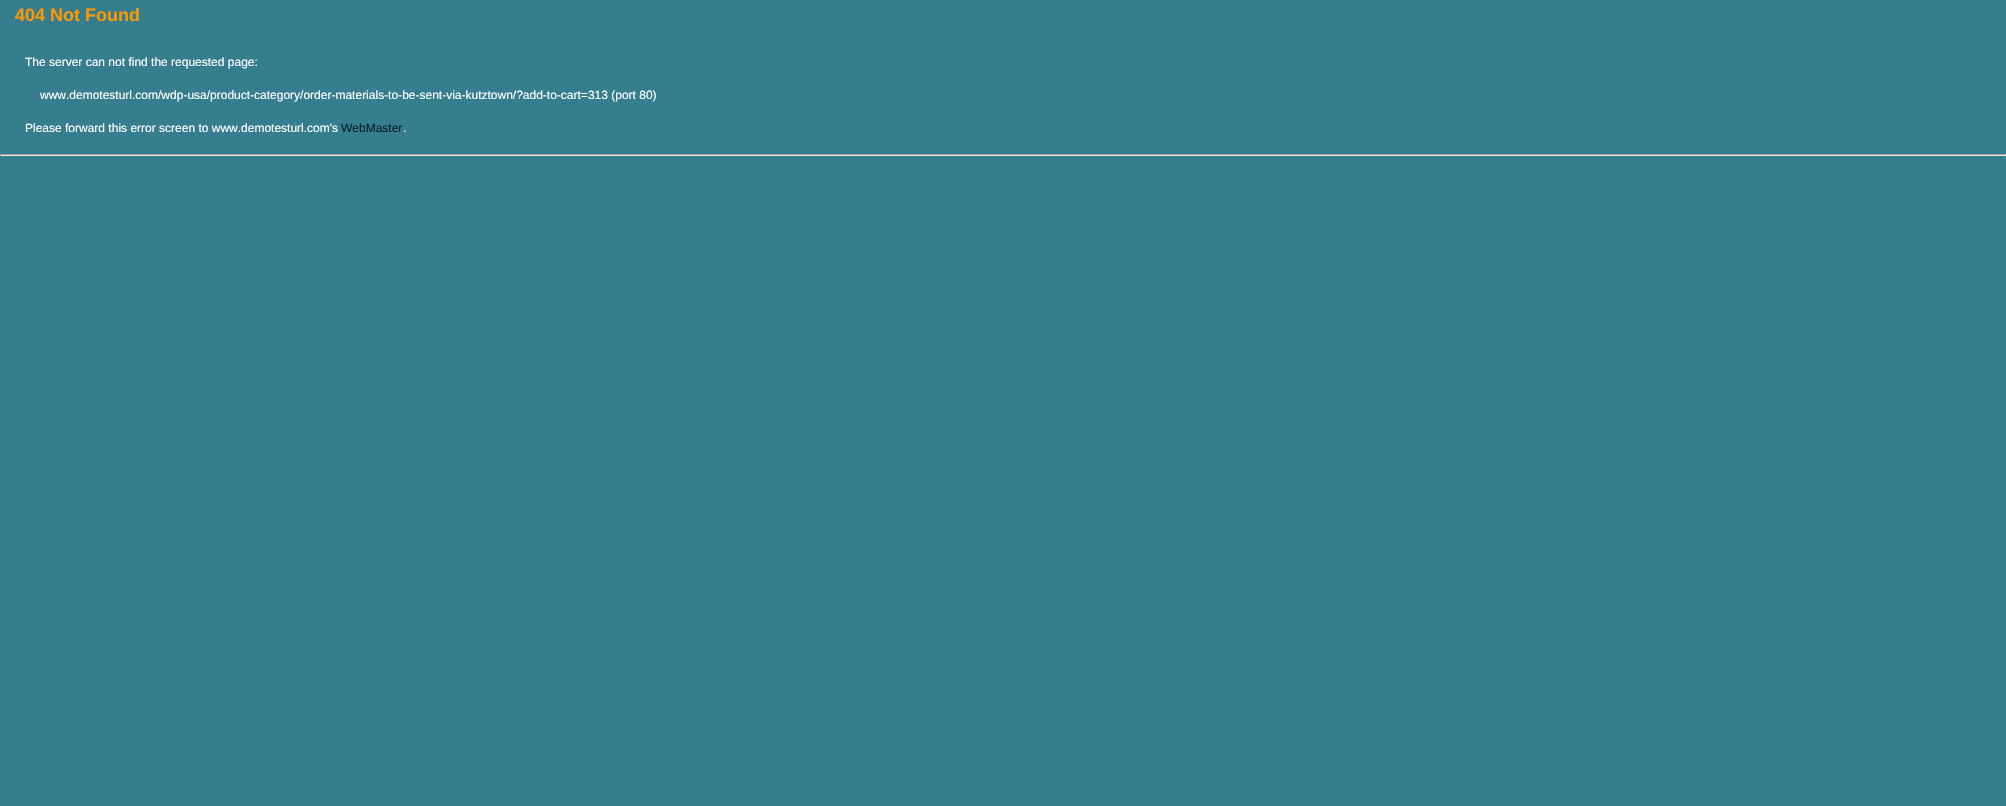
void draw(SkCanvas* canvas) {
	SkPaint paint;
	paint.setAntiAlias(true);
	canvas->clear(0xff367e8e);
	SkFont f1(fontMgr->matchFamilyStyle("Liberation Sans", SkFontStyle::Bold()), 18);
	f1.setSubpixel(true);
	paint.setColor(0xfffb9802);
	canvas->drawString("404 Not Found", 15, 21, f1, paint);
	SkFont f2(fontMgr->matchFamilyStyle("Liberation Sans", SkFontStyle::Normal()), 12);
	f2.setSubpixel(true);
	paint.setColor(0xffffffff);
	canvas->drawString("The server can not find the requested page:", 25, 66, f2, paint);
	canvas->drawString("www.demotesturl.com/wdp-usa/product-category/order-materials-to-be-sent-via-kutztown/?add-to-cart=313 (port 80)", 40, 99, f2, paint);
	canvas->drawString("Please forward this error screen to www.demotesturl.com's", 25, 132, f2, paint);
	paint.setColor(0xff021f25);
	canvas->drawString("WebMaster", 341, 132, f2, paint);
	paint.setColor(0xffffffff);
	canvas->drawString(".", 403, 132, f2, paint);
	paint.setColor(0xff9f9f9f);
	canvas->drawRect(SkRect::MakeXYWH(0, 154, 2006, 1), paint);
	paint.setColor(0xffeeeeee);
	canvas->drawRect(SkRect::MakeXYWH(2005, 154, 1, 2), paint);
	canvas->drawRect(SkRect::MakeXYWH(0, 155, 2006, 1), paint);
	paint.setColor(0xff9f9f9f);
	canvas->drawRect(SkRect::MakeXYWH(0, 154, 1, 2), paint);
}
